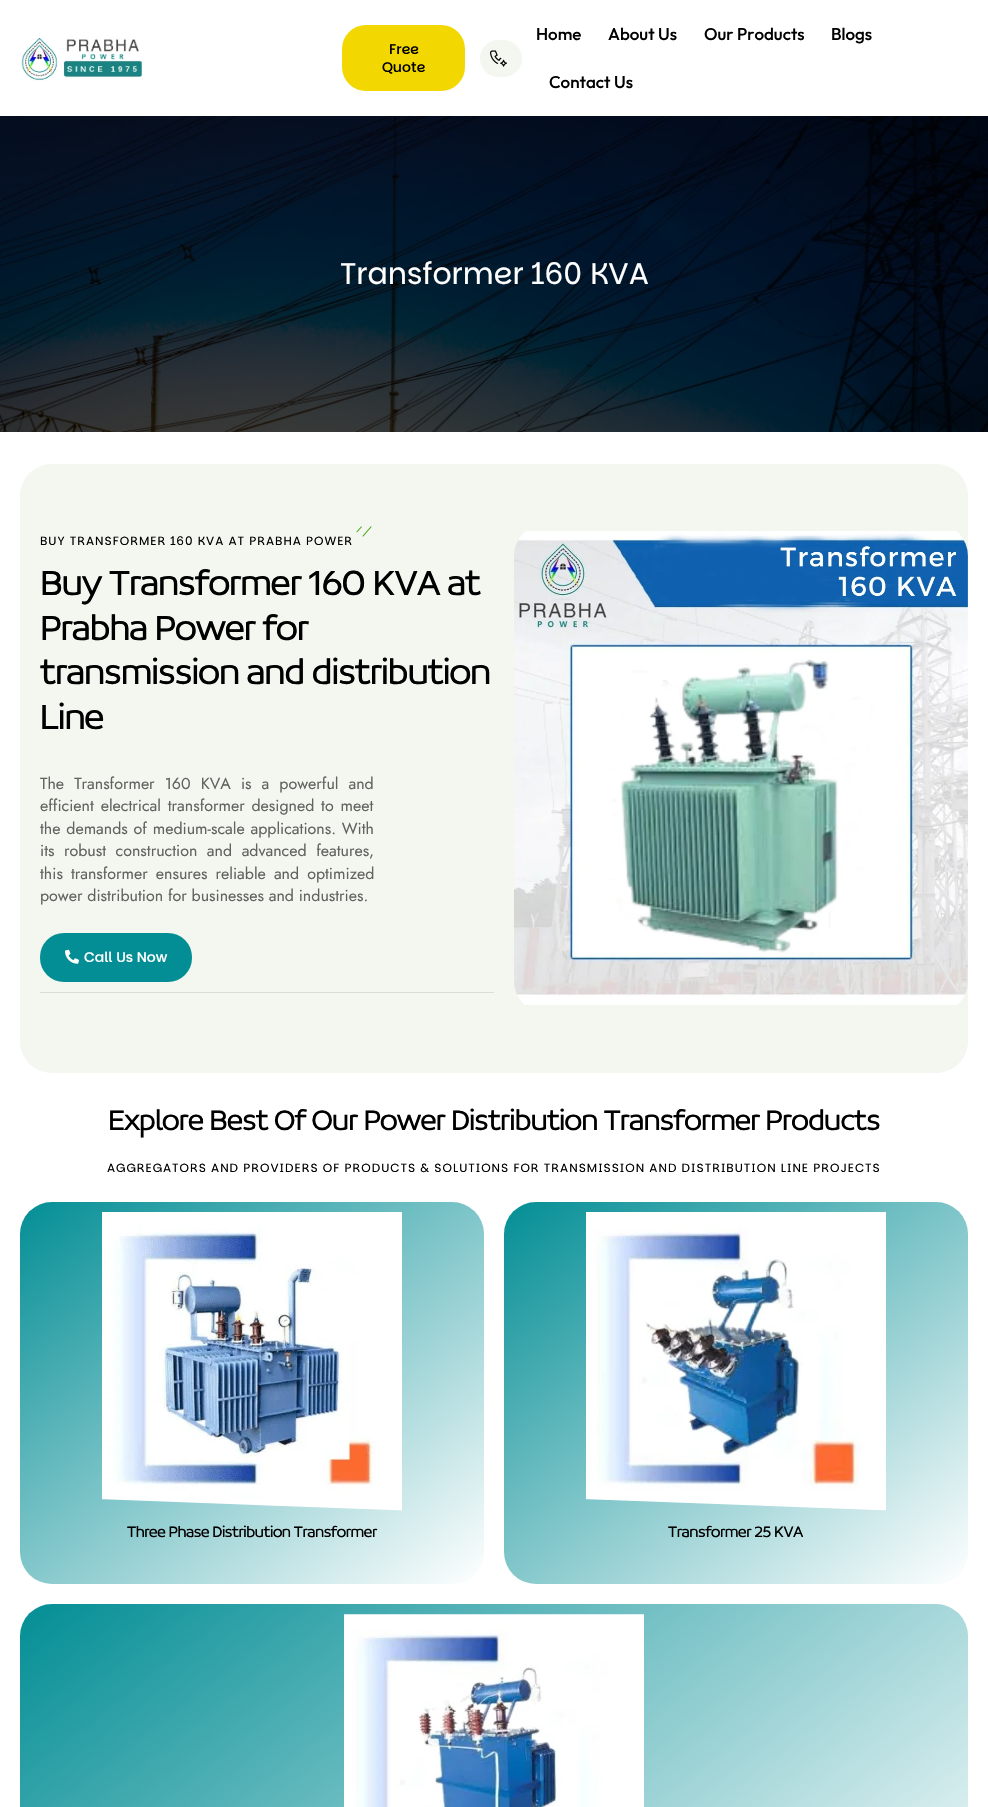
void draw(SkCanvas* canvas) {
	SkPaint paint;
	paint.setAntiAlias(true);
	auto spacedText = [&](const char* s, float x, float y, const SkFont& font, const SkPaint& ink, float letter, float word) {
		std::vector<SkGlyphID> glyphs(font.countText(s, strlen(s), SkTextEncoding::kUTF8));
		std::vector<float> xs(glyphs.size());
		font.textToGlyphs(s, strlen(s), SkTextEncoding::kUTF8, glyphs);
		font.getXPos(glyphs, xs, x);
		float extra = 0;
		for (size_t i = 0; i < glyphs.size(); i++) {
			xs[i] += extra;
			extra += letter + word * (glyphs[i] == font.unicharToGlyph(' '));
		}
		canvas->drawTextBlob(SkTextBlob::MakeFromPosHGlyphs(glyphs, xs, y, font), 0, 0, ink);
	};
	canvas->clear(0xffffffff);
	canvas->drawImageRect(SkImages::DeferredFromEncodedData(SkData::MakeFromFileName("img1.png")), SkRect::MakeXYWH(20, 37, 123, 44), SkSamplingOptions());
	paint.setColor(0xfff2d701);
	canvas->drawRoundRect(SkRect::MakeXYWH(342, 25, 123, 66), 24, 24, paint);
	SkFont f1(fontMgr->matchFamilyStyle("Parkinsans", SkFontStyle(500, SkFontStyle::kNormal_Width, SkFontStyle::kUpright_Slant)), 14);
	f1.setSubpixel(true);
	paint.setColor(0xff000000);
	canvas->drawString("Free", 389, 54, f1, paint);
	canvas->drawString("Quote", 382, 72, f1, paint);
	paint.setColor(0xfff4f6f0);
	canvas->drawRoundRect(SkRect::MakeXYWH(480, 40, 42, 37), 18.5, 18.5, paint);
	canvas->drawImageRect(SkImages::DeferredFromEncodedData(SkData::MakeFromFileName("img2.png")), SkRect::MakeXYWH(490, 50, 17, 17), SkSamplingOptions());
	SkFont f2(fontMgr->matchFamilyStyle("Outfit", SkFontStyle(500, SkFontStyle::kNormal_Width, SkFontStyle::kUpright_Slant)), 17);
	f2.setSubpixel(true);
	paint.setColor(0xff000000);
	canvas->drawString("Home", 536, 40, f2, paint);
	canvas->drawString("About Us", 608, 40, f2, paint);
	canvas->drawString("Our Products", 704, 40, f2, paint);
	canvas->drawString("Blogs", 831, 40, f2, paint);
	canvas->drawString("Contact Us", 549, 88, f2, paint);
	canvas->drawImageRect(SkImages::DeferredFromEncodedData(SkData::MakeFromFileName("img3.png")), SkRect::MakeXYWH(0, 116, 988, 316), SkSamplingOptions());
	SkFont f3(fontMgr->matchFamilyStyle("Parkinsans", SkFontStyle::Normal()), 30);
	f3.setSubpixel(true);
	paint.setColor(0xffffffff);
	canvas->drawString("Transformer 160 KVA", 340, 284, f3, paint);
	paint.setColor(0xfff4f6f0);
	canvas->drawRoundRect(SkRect::MakeXYWH(20, 464, 948, 609), 32, 32, paint);
	canvas->drawImageRect(SkImages::DeferredFromEncodedData(SkData::MakeFromFileName("img4.png")), SkRect::MakeXYWH(356, 526, 16, 11), SkSamplingOptions());
	SkFont f4(fontMgr->matchFamilyStyle("Parkinsans", SkFontStyle::Normal()), 12);
	f4.setSubpixel(true);
	paint.setColor(0xff000000);
	spacedText("BUY TRANSFORMER 160 KVA AT PRABHA POWER", 40, 545, f4, paint, 1, 0);
	SkFont f5(fontMgr->matchFamilyStyle("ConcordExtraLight", SkFontStyle::Bold()), 37);
	f5.setSubpixel(true);
	canvas->drawString("Buy Transformer 160 KVA at", 40, 595, f5, paint);
	canvas->drawString("Prabha Power for", 40, 640, f5, paint);
	canvas->drawString("transmission and distribution", 40, 684, f5, paint);
	canvas->drawString("Line", 40, 729, f5, paint);
	SkFont f6(fontMgr->matchFamilyStyle("Jost", SkFontStyle::Normal()), 16);
	f6.setSubpixel(true);
	paint.setColor(0xff626260);
	spacedText("The Transformer 160 KVA is a powerful and", 40, 789, f6, paint, 0, 5.25);
	spacedText("efficient electrical transformer designed to meet", 40, 811, f6, paint, 0, 2);
	spacedText("the demands of medium-scale applications. With", 40, 834, f6, paint, 0, 1);
	spacedText("its robust construction and advanced features,", 40, 856, f6, paint, 0, 4.75);
	spacedText("this transformer ensures reliable and optimized", 40, 879, f6, paint, 0, 3.25);
	canvas->drawString("power distribution for businesses and industries.", 40, 901, f6, paint);
	paint.setColor(0xff038e95);
	canvas->drawRoundRect(SkRect::MakeXYWH(40, 933, 152, 49), 24, 24, paint);
	canvas->drawImageRect(SkImages::DeferredFromEncodedData(SkData::MakeFromFileName("img5.png")), SkRect::MakeXYWH(65, 949, 14, 15), SkSamplingOptions());
	paint.setColor(0xffffffff);
	canvas->drawString("Call Us Now", 84, 962, f1, paint);
	paint.setColor(0xffdcddd8);
	canvas->drawRect(SkRect::MakeXYWH(40, 992, 454, 1), paint);
	canvas->drawImageRect(SkImages::DeferredFromEncodedData(SkData::MakeFromFileName("img6.png")), SkRect::MakeXYWH(514, 531, 454, 474), SkSamplingOptions());
	SkFont f7(fontMgr->matchFamilyStyle("ConcordExtraLight", SkFontStyle::Bold()), 30);
	f7.setSubpixel(true);
	paint.setColor(0xff000000);
	canvas->drawString("Explore Best Of Our Power Distribution Transformer Products", 108, 1130, f7, paint);
	spacedText("AGGREGATORS AND PROVIDERS OF PRODUCTS & SOLUTIONS FOR TRANSMISSION AND DISTRIBUTION LINE PROJECTS", 107, 1172, f4, paint, 1, 0);
	{
		const SkColor colors[] = {0xff038e95, 0xffffffff};
		const float stops[] = {0, 1};
		const SkPoint ends[] = {{71, 1162}, {433, 1624}};
		paint.setShader(SkGradientShader::MakeLinear(ends, colors, stops, 2, SkTileMode::kClamp));
		paint.setAlpha(255);
	}
	canvas->drawRoundRect(SkRect::MakeXYWH(20, 1202, 464, 382), 32, 32, paint);
	canvas->drawImageRect(SkImages::DeferredFromEncodedData(SkData::MakeFromFileName("img7.png")), SkRect::MakeXYWH(102, 1212, 300, 299), SkSamplingOptions());
	SkFont f8(fontMgr->matchFamilyStyle("ConcordExtraLight", SkFontStyle::Bold()), 16);
	f8.setSubpixel(true);
	paint.setShader(nullptr);
	paint.setColor(0xff000000);
	canvas->drawString("Three Phase Distribution Transformer", 127, 1537, f8, paint);
	{
		const SkColor colors[] = {0xff038e95, 0xffffffff};
		const float stops[] = {0, 1};
		const SkPoint ends[] = {{555, 1162}, {917, 1624}};
		paint.setShader(SkGradientShader::MakeLinear(ends, colors, stops, 2, SkTileMode::kClamp));
		paint.setAlpha(255);
	}
	canvas->drawRoundRect(SkRect::MakeXYWH(504, 1202, 464, 382), 32, 32, paint);
	canvas->drawImageRect(SkImages::DeferredFromEncodedData(SkData::MakeFromFileName("img8.png")), SkRect::MakeXYWH(586, 1212, 300, 299), SkSamplingOptions());
	paint.setShader(nullptr);
	paint.setColor(0xff000000);
	canvas->drawString("Transformer 25 KVA", 668, 1537, f8, paint);
	{
		const SkColor colors[] = {0xff038e95, 0xffffffff};
		const float stops[] = {0, 1};
		const SkPoint ends[] = {{221, 1447}, {767, 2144}};
		paint.setShader(SkGradientShader::MakeLinear(ends, colors, stops, 2, SkTileMode::kClamp));
		paint.setAlpha(255);
	}
	canvas->drawRoundRect(SkRect::MakeXYWH(20, 1604, 948, 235), 32, 32, paint);
	canvas->drawImageRect(SkImages::DeferredFromEncodedData(SkData::MakeFromFileName("img9.png")), SkRect::MakeXYWH(344, 1614, 300, 193), SkSamplingOptions());
}
